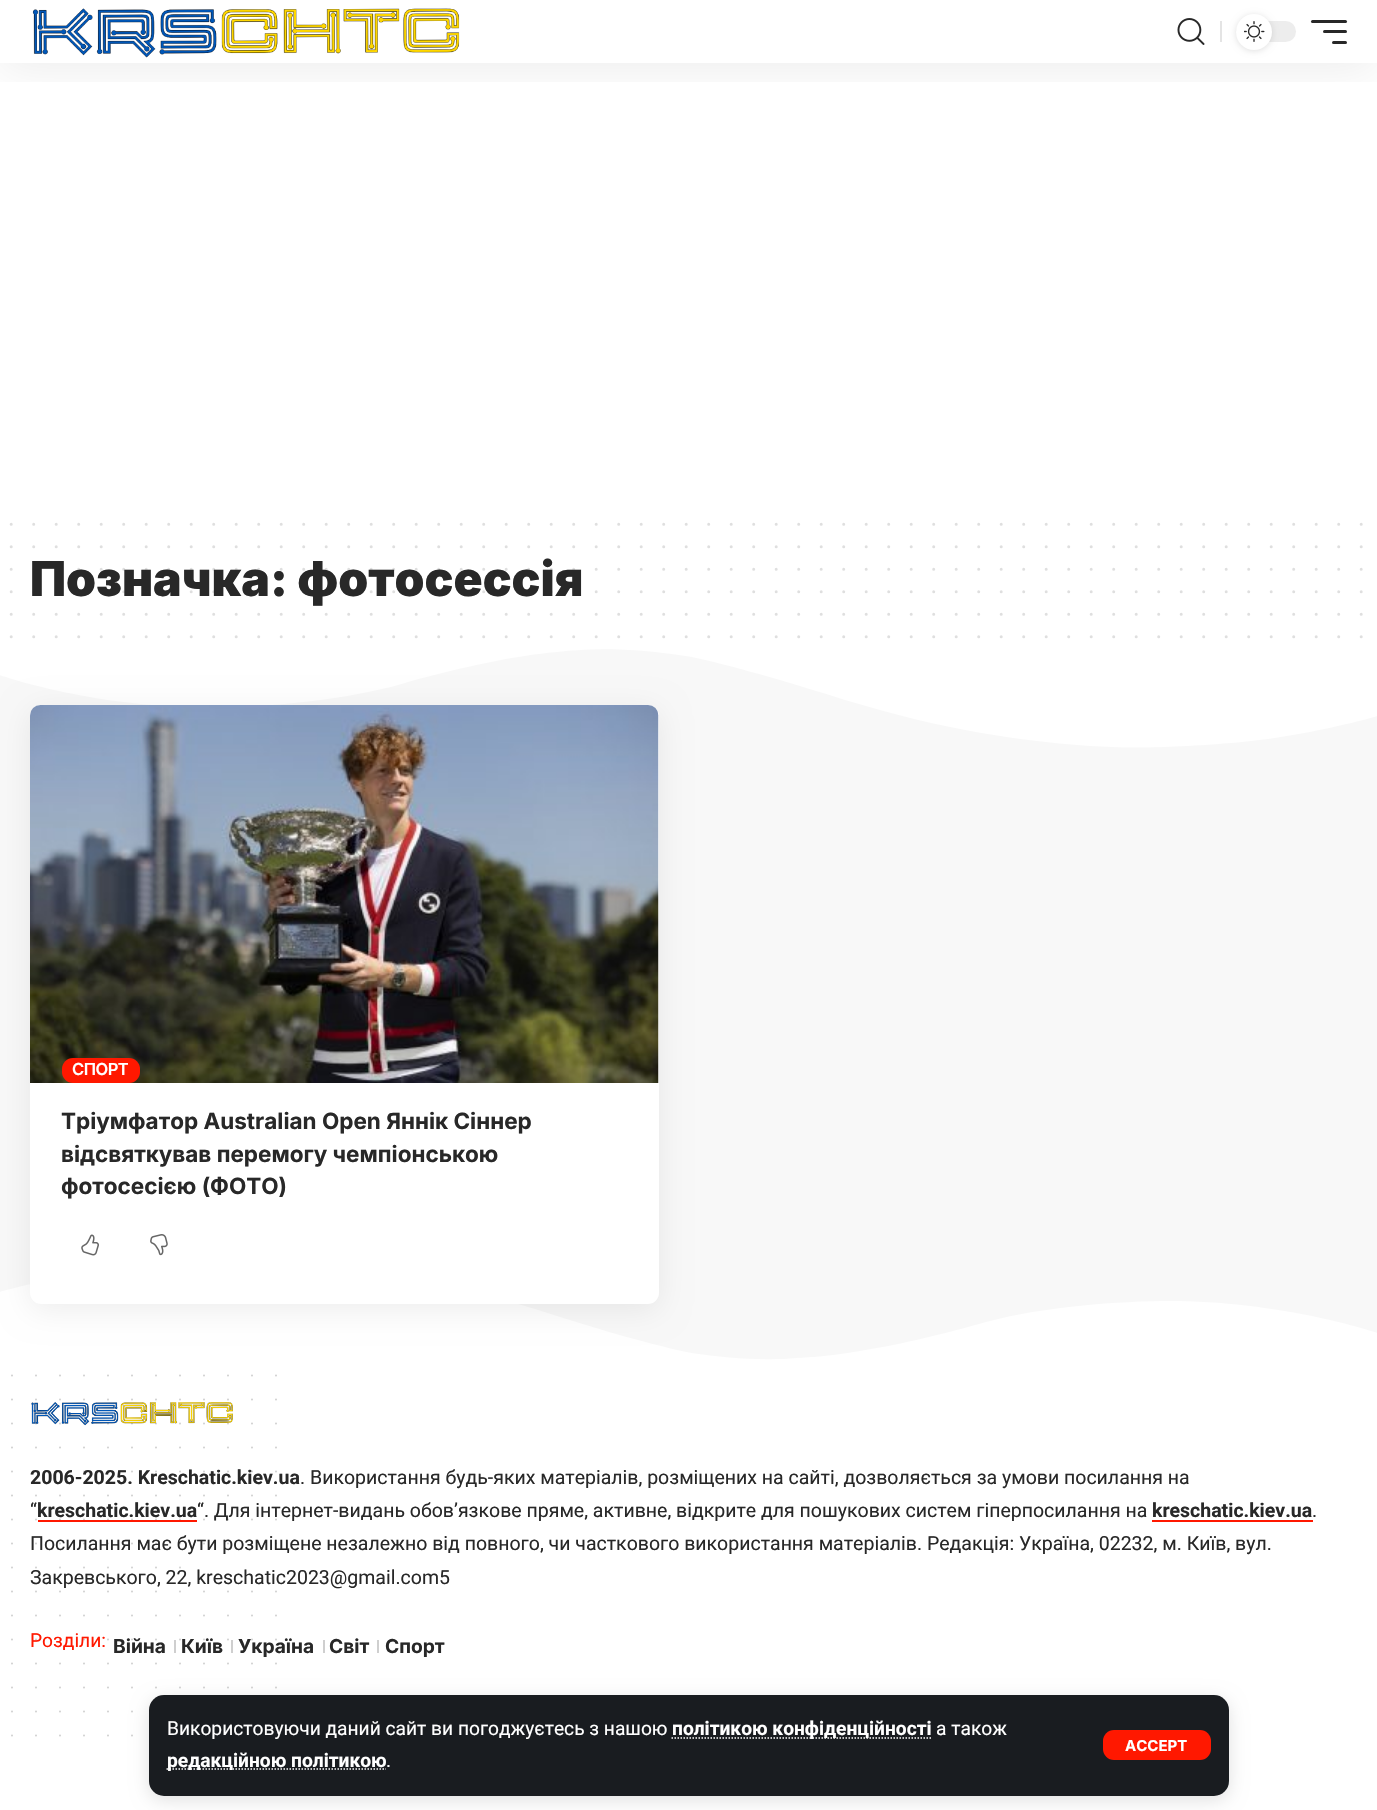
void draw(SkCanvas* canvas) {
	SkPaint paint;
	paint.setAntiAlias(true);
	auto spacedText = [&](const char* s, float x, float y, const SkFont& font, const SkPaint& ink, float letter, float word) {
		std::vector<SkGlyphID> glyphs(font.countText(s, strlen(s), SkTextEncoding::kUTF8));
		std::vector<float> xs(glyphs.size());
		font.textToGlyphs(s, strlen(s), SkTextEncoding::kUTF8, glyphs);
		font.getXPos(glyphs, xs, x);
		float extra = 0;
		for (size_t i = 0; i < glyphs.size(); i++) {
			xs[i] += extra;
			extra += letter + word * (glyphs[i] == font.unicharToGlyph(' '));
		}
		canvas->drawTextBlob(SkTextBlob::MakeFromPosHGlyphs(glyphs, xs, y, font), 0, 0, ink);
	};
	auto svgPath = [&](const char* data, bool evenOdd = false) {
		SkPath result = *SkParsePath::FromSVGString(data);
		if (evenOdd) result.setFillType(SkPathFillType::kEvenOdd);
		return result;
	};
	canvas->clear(0xffffffff);
	paint.setStroke(true);
	paint.setStrokeWidth(3);
	paint.setStrokeCap(SkPaint::kRound_Cap);
	paint.setColor(0xffdfdfdf);
	paint.setPathEffect(SkDashPathEffect::Make({{0, 22.5f}}, 0));
	canvas->drawPath(svgPath("M11.2 524.2H1361.6"), paint);
	paint.setPathEffect(nullptr);
	paint.setPathEffect(SkDashPathEffect::Make({{0, 22.5f}}, 0));
	canvas->drawPath(svgPath("M11.2 546.8H1361.6"), paint);
	paint.setPathEffect(nullptr);
	SkFont f1(fontMgr->matchFamilyStyle("Inter", SkFontStyle(900, SkFontStyle::kNormal_Width, SkFontStyle::kUpright_Slant)), 48);
	f1.setSubpixel(true);
	paint.setStroke(false);
	paint.setColor(0xff282828);
	canvas->drawString("Позначка: фотосессія", 30, 596, f1, paint);
	paint.setStroke(true);
	paint.setColor(0x26282828);
	paint.setPathEffect(SkDashPathEffect::Make({{0, 22.5f}}, 0));
	canvas->drawPath(svgPath("M11.2 569.2H1361.6"), paint);
	paint.setPathEffect(nullptr);
	paint.setPathEffect(SkDashPathEffect::Make({{0, 22.5f}}, 0));
	canvas->drawPath(svgPath("M11.2 591.8H1361.6"), paint);
	paint.setPathEffect(nullptr);
	paint.setColor(0xffdfdfdf);
	paint.setPathEffect(SkDashPathEffect::Make({{0, 22.5f}}, 0));
	canvas->drawPath(svgPath("M11.2 614.2H1361.6"), paint);
	paint.setPathEffect(nullptr);
	paint.setPathEffect(SkDashPathEffect::Make({{0, 22.5f}}, 0));
	canvas->drawPath(svgPath("M11.2 636.8H1361.6"), paint);
	paint.setPathEffect(nullptr);
	paint.setStroke(false);
	paint.setColor(0xfff8f8f8);
	canvas->drawRect(SkRect::MakeXYWH(0, 649, 1377, 711), paint);
	paint.setColor(0xffffffff);
	canvas->drawPath(svgPath("M581 650C612 648 652 651 685 656C717 661 783 681 823 693C928 727 1008 740 1089 746C1122 748 1156 749 1232 743C1307 737 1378 716 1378 716V644H-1V675C-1 675 98 710 217 707C272 707 345 700 402 684C431 675 474 665 512 658C550 652 567 651 581 650Z"), paint);
	canvas->drawPath(svgPath("M796 1358C765 1361 725 1358 692 1353C660 1347 594 1328 554 1315C449 1281 369 1268 288 1263C255 1261 221 1259 145 1265C70 1272-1 1292-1 1292V1365H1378V1333C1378 1333 1279 1299 1160 1301C1105 1302 1032 1308 975 1325C946 1333 903 1344 865 1350C827 1357 810 1357 796 1358Z"), paint);
	paint.setColor(0x12000000);
	paint.setMaskFilter(SkMaskFilter::MakeBlur(kNormal_SkBlurStyle, 15));
	canvas->drawRoundRect(SkRect::MakeXYWH(30, 711, 629, 599), 11, 11, paint);
	paint.setMaskFilter(nullptr);
	paint.setColor(0xffffffff);
	canvas->drawRoundRect(SkRect::MakeXYWH(30, 705, 629, 599), 11, 11, paint);
	canvas->drawImageRect(SkImages::DeferredFromEncodedData(SkData::MakeFromFileName("img1.png")), SkRect::MakeXYWH(30, 705, 629, 378), SkSamplingOptions());
	paint.setColor(0xffff1800);
	canvas->drawRoundRect(SkRect::MakeXYWH(62, 1058, 78, 25), 11, 11, paint);
	SkFont f2(fontMgr->matchFamilyStyle("Inter", SkFontStyle(600, SkFontStyle::kNormal_Width, SkFontStyle::kUpright_Slant)), 16.5);
	f2.setSubpixel(true);
	paint.setColor(0xffffffff);
	spacedText("СПОРТ", 72, 1075, f2, paint, -0.5, 0);
	SkFont f3(fontMgr->matchFamilyStyle("Inter", SkFontStyle::Bold()), 22.5);
	f3.setSubpixel(true);
	paint.setColor(0xff282828);
	canvas->drawString("Тріумфатор Australian Open Яннік Сіннер", 61, 1129, f3, paint);
	canvas->drawString("відсвяткував перемогу чемпіонською", 61, 1162, f3, paint);
	canvas->drawString("фотосесією (ФОТО)", 61, 1194, f3, paint);
	canvas->drawImageRect(SkImages::DeferredFromEncodedData(SkData::MakeFromFileName("img2.png")), SkRect::MakeXYWH(81, 1234, 18, 22), SkSamplingOptions());
	canvas->drawImageRect(SkImages::DeferredFromEncodedData(SkData::MakeFromFileName("img3.png")), SkRect::MakeXYWH(150, 1234, 18, 22), SkSamplingOptions());
	paint.setStroke(true);
	paint.setStrokeWidth(2.2);
	paint.setColor(0xffd4d4d4);
	paint.setPathEffect(SkDashPathEffect::Make({{0, 24}}, 0));
	canvas->drawPath(svgPath("M12 1375.5V1735.8"), paint);
	paint.setPathEffect(nullptr);
	paint.setPathEffect(SkDashPathEffect::Make({{0, 24}}, 0));
	canvas->drawPath(svgPath("M36 1375.5V1735.8"), paint);
	paint.setPathEffect(nullptr);
	paint.setPathEffect(SkDashPathEffect::Make({{0, 24}}, 0));
	canvas->drawPath(svgPath("M60 1375.5V1735.8"), paint);
	paint.setPathEffect(nullptr);
	paint.setPathEffect(SkDashPathEffect::Make({{0, 24}}, 0));
	canvas->drawPath(svgPath("M84 1375.5V1735.8"), paint);
	paint.setPathEffect(nullptr);
	paint.setPathEffect(SkDashPathEffect::Make({{0, 24}}, 0));
	canvas->drawPath(svgPath("M108 1375.5V1735.8"), paint);
	paint.setPathEffect(nullptr);
	paint.setPathEffect(SkDashPathEffect::Make({{0, 24}}, 0));
	canvas->drawPath(svgPath("M132 1375.5V1735.8"), paint);
	paint.setPathEffect(nullptr);
	paint.setPathEffect(SkDashPathEffect::Make({{0, 24}}, 0));
	canvas->drawPath(svgPath("M156 1375.5V1735.8"), paint);
	paint.setPathEffect(nullptr);
	paint.setPathEffect(SkDashPathEffect::Make({{0, 24}}, 0));
	canvas->drawPath(svgPath("M180 1375.5V1735.8"), paint);
	paint.setPathEffect(nullptr);
	paint.setPathEffect(SkDashPathEffect::Make({{0, 24}}, 0));
	canvas->drawPath(svgPath("M204 1375.5V1735.8"), paint);
	paint.setPathEffect(nullptr);
	paint.setPathEffect(SkDashPathEffect::Make({{0, 24}}, 0));
	canvas->drawPath(svgPath("M228 1375.5V1735.8"), paint);
	paint.setPathEffect(nullptr);
	paint.setPathEffect(SkDashPathEffect::Make({{0, 24}}, 0));
	canvas->drawPath(svgPath("M252 1375.5V1735.8"), paint);
	paint.setPathEffect(nullptr);
	paint.setPathEffect(SkDashPathEffect::Make({{0, 24}}, 0));
	canvas->drawPath(svgPath("M276 1375.5V1735.8"), paint);
	paint.setPathEffect(nullptr);
	canvas->drawImageRect(SkImages::DeferredFromEncodedData(SkData::MakeFromFileName("img4.png")), SkRect::MakeXYWH(31, 1402, 202, 24), SkSamplingOptions());
	SkFont f4(fontMgr->matchFamilyStyle("Roboto", SkFontStyle::Bold()), 19.5);
	f4.setSubpixel(true);
	paint.setStroke(false);
	paint.setColor(0xff282828);
	canvas->drawString("2006-2025. Kreschatic.kiev.ua", 30, 1484, f4, paint);
	SkFont f5(fontMgr->matchFamilyStyle("Roboto", SkFontStyle::Normal()), 19.5);
	f5.setSubpixel(true);
	canvas->drawString(". Використання будь-яких матеріалів, розміщених на сайті, дозволяється за умови посилання на", 300, 1484, f5, paint);
	canvas->drawString("“", 30, 1517, f5, paint);
	canvas->drawString("kreschatic.kiev.ua", 37, 1517, f4, paint);
	paint.setColor(0xffff1800);
	canvas->drawRect(SkRect::MakeXYWH(38, 1520, 159, 2), paint);
	paint.setColor(0xff282828);
	canvas->drawString("“. Для інтернет-видань обов’язкове пряме, активне, відкрите для пошукових систем гіперпосилання на", 197, 1517, f5, paint);
	canvas->drawString("kreschatic.kiev.ua", 1152, 1517, f4, paint);
	paint.setColor(0xffff1800);
	canvas->drawRect(SkRect::MakeXYWH(1152, 1520, 161, 2), paint);
	paint.setColor(0xff282828);
	canvas->drawString(".", 1312, 1517, f5, paint);
	canvas->drawString("Посилання має бути розміщене незалежно від повного, чи часткового використання матеріалів. Редакція: Україна, 02232, м. Київ, вул.", 30, 1550, f5, paint);
	paint.setColor(0xffffffff);
	canvas->drawRect(SkRect::MakeXYWH(203, 1566, 74, 3), paint);
	paint.setColor(0xff282828);
	canvas->drawString("Закревського, 22, kreschatic2023@gmail.com5", 30, 1584, f5, paint);
	SkFont f6(fontMgr->matchFamilyStyle("Roboto", SkFontStyle::Normal()), 19.2);
	f6.setSubpixel(true);
	paint.setColor(0xffff1800);
	canvas->drawString("Розділи:", 30, 1647, f6, paint);
	SkFont f7(fontMgr->matchFamilyStyle("Inter", SkFontStyle::Bold()), 19.2);
	f7.setSubpixel(true);
	paint.setColor(0xff282828);
	canvas->drawString("Війна", 113, 1653, f7, paint);
	paint.setColor(0xffcfcfcf);
	canvas->drawRect(SkRect::MakeXYWH(174, 1640, 2, 13), paint);
	paint.setColor(0xff282828);
	canvas->drawString("Київ", 181, 1653, f7, paint);
	paint.setColor(0xffcfcfcf);
	canvas->drawRect(SkRect::MakeXYWH(231, 1640, 2, 13), paint);
	paint.setColor(0xff282828);
	canvas->drawString("Україна", 238, 1653, f7, paint);
	paint.setColor(0xffcfcfcf);
	canvas->drawRect(SkRect::MakeXYWH(323, 1640, 2, 13), paint);
	paint.setColor(0xff282828);
	canvas->drawString("Світ", 329, 1653, f7, paint);
	paint.setColor(0xffcfcfcf);
	canvas->drawRect(SkRect::MakeXYWH(377, 1640, 2, 13), paint);
	paint.setColor(0xff282828);
	canvas->drawString("Спорт", 385, 1653, f7, paint);
	canvas->save();
	canvas->clipRect(SkRect::MakeXYWH(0, 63, 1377, 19));
	paint.setColor(0x12000000);
	paint.setMaskFilter(SkMaskFilter::MakeBlur(kNormal_SkBlurStyle, 22.5));
	canvas->drawRect(SkRect::MakeXYWH(0, 6, 1377, 63), paint);
	paint.setMaskFilter(nullptr);
	canvas->restore();
	canvas->drawImageRect(SkImages::DeferredFromEncodedData(SkData::MakeFromFileName("img5.png")), SkRect::MakeXYWH(32, 8, 428, 50), SkSamplingOptions());
	canvas->drawImageRect(SkImages::DeferredFromEncodedData(SkData::MakeFromFileName("img6.png")), SkRect::MakeXYWH(1177, 18, 28, 27), SkSamplingOptions());
	paint.setColor(0xffe4e4e4);
	canvas->drawRect(SkRect::MakeXYWH(1220, 21, 2, 21), paint);
	paint.setColor(0xffededed);
	canvas->drawRoundRect(SkRect::MakeXYWH(1236, 21, 60, 21), 10.5, 10.5, paint);
	paint.setColor(0x1f000000);
	paint.setMaskFilter(SkMaskFilter::MakeBlur(kNormal_SkBlurStyle, 3));
	canvas->drawRoundRect(SkRect::MakeXYWH(1236, 15, 36, 36), 18, 18, paint);
	paint.setMaskFilter(nullptr);
	paint.setColor(0xffffffff);
	canvas->drawCircle(1254, 32, 18, paint);
	canvas->drawImageRect(SkImages::DeferredFromEncodedData(SkData::MakeFromFileName("img7.png")), SkRect::MakeXYWH(1244, 21, 21, 21), SkSamplingOptions());
	paint.setColor(0xff282828);
	canvas->drawRoundRect(SkRect::MakeXYWH(1311, 20, 36, 3), 1.5, 1.5, paint);
	canvas->drawRoundRect(SkRect::MakeXYWH(1323, 30, 24, 3), 1.5, 1.5, paint);
	canvas->drawRoundRect(SkRect::MakeXYWH(1332, 41, 15, 3), 1.5, 1.5, paint);
	paint.setColor(0x1f000000);
	paint.setMaskFilter(SkMaskFilter::MakeBlur(kNormal_SkBlurStyle, 9));
	canvas->drawRoundRect(SkRect::MakeXYWH(149, 1700, 1080, 100), 15, 15, paint);
	paint.setMaskFilter(nullptr);
	paint.setColor(0xff191c20);
	canvas->drawRoundRect(SkRect::MakeXYWH(149, 1695, 1080, 101), 15, 15, paint);
	paint.setColor(0xffffffff);
	canvas->drawString("Використовуючи даний сайт ви погоджуєтесь з нашою", 167, 1735, f6, paint);
	paint.setStroke(true);
	paint.setStrokeWidth(1.5);
	paint.setStrokeCap(SkPaint::kButt_Cap);
	paint.setPathEffect(SkDashPathEffect::Make({{1.5f, 1.5f}}, 0));
	canvas->drawPath(svgPath("M671.5 1738H931"), paint);
	paint.setPathEffect(nullptr);
	SkFont f8(fontMgr->matchFamilyStyle("Roboto", SkFontStyle::Bold()), 19.2);
	f8.setSubpixel(true);
	paint.setStroke(false);
	canvas->drawString("політикою конфіденційності", 672, 1735, f8, paint);
	canvas->drawString("а також", 936, 1735, f6, paint);
	paint.setStroke(true);
	paint.setPathEffect(SkDashPathEffect::Make({{1.5f, 1.5f}}, 0));
	canvas->drawPath(svgPath("M166.5 1769H386"), paint);
	paint.setPathEffect(nullptr);
	paint.setStroke(false);
	canvas->drawString("редакційною політикою", 167, 1767, f8, paint);
	canvas->drawString(".", 386, 1767, f6, paint);
	paint.setColor(0xffff1800);
	canvas->drawRoundRect(SkRect::MakeXYWH(1103, 1730, 108, 30), 11, 11, paint);
	SkFont f9(fontMgr->matchFamilyStyle("Inter", SkFontStyle::Bold()), 15);
	f9.setSubpixel(true);
	paint.setColor(0xffffffff);
	canvas->drawString("ACCEPT", 1125, 1751, f9, paint);
}
